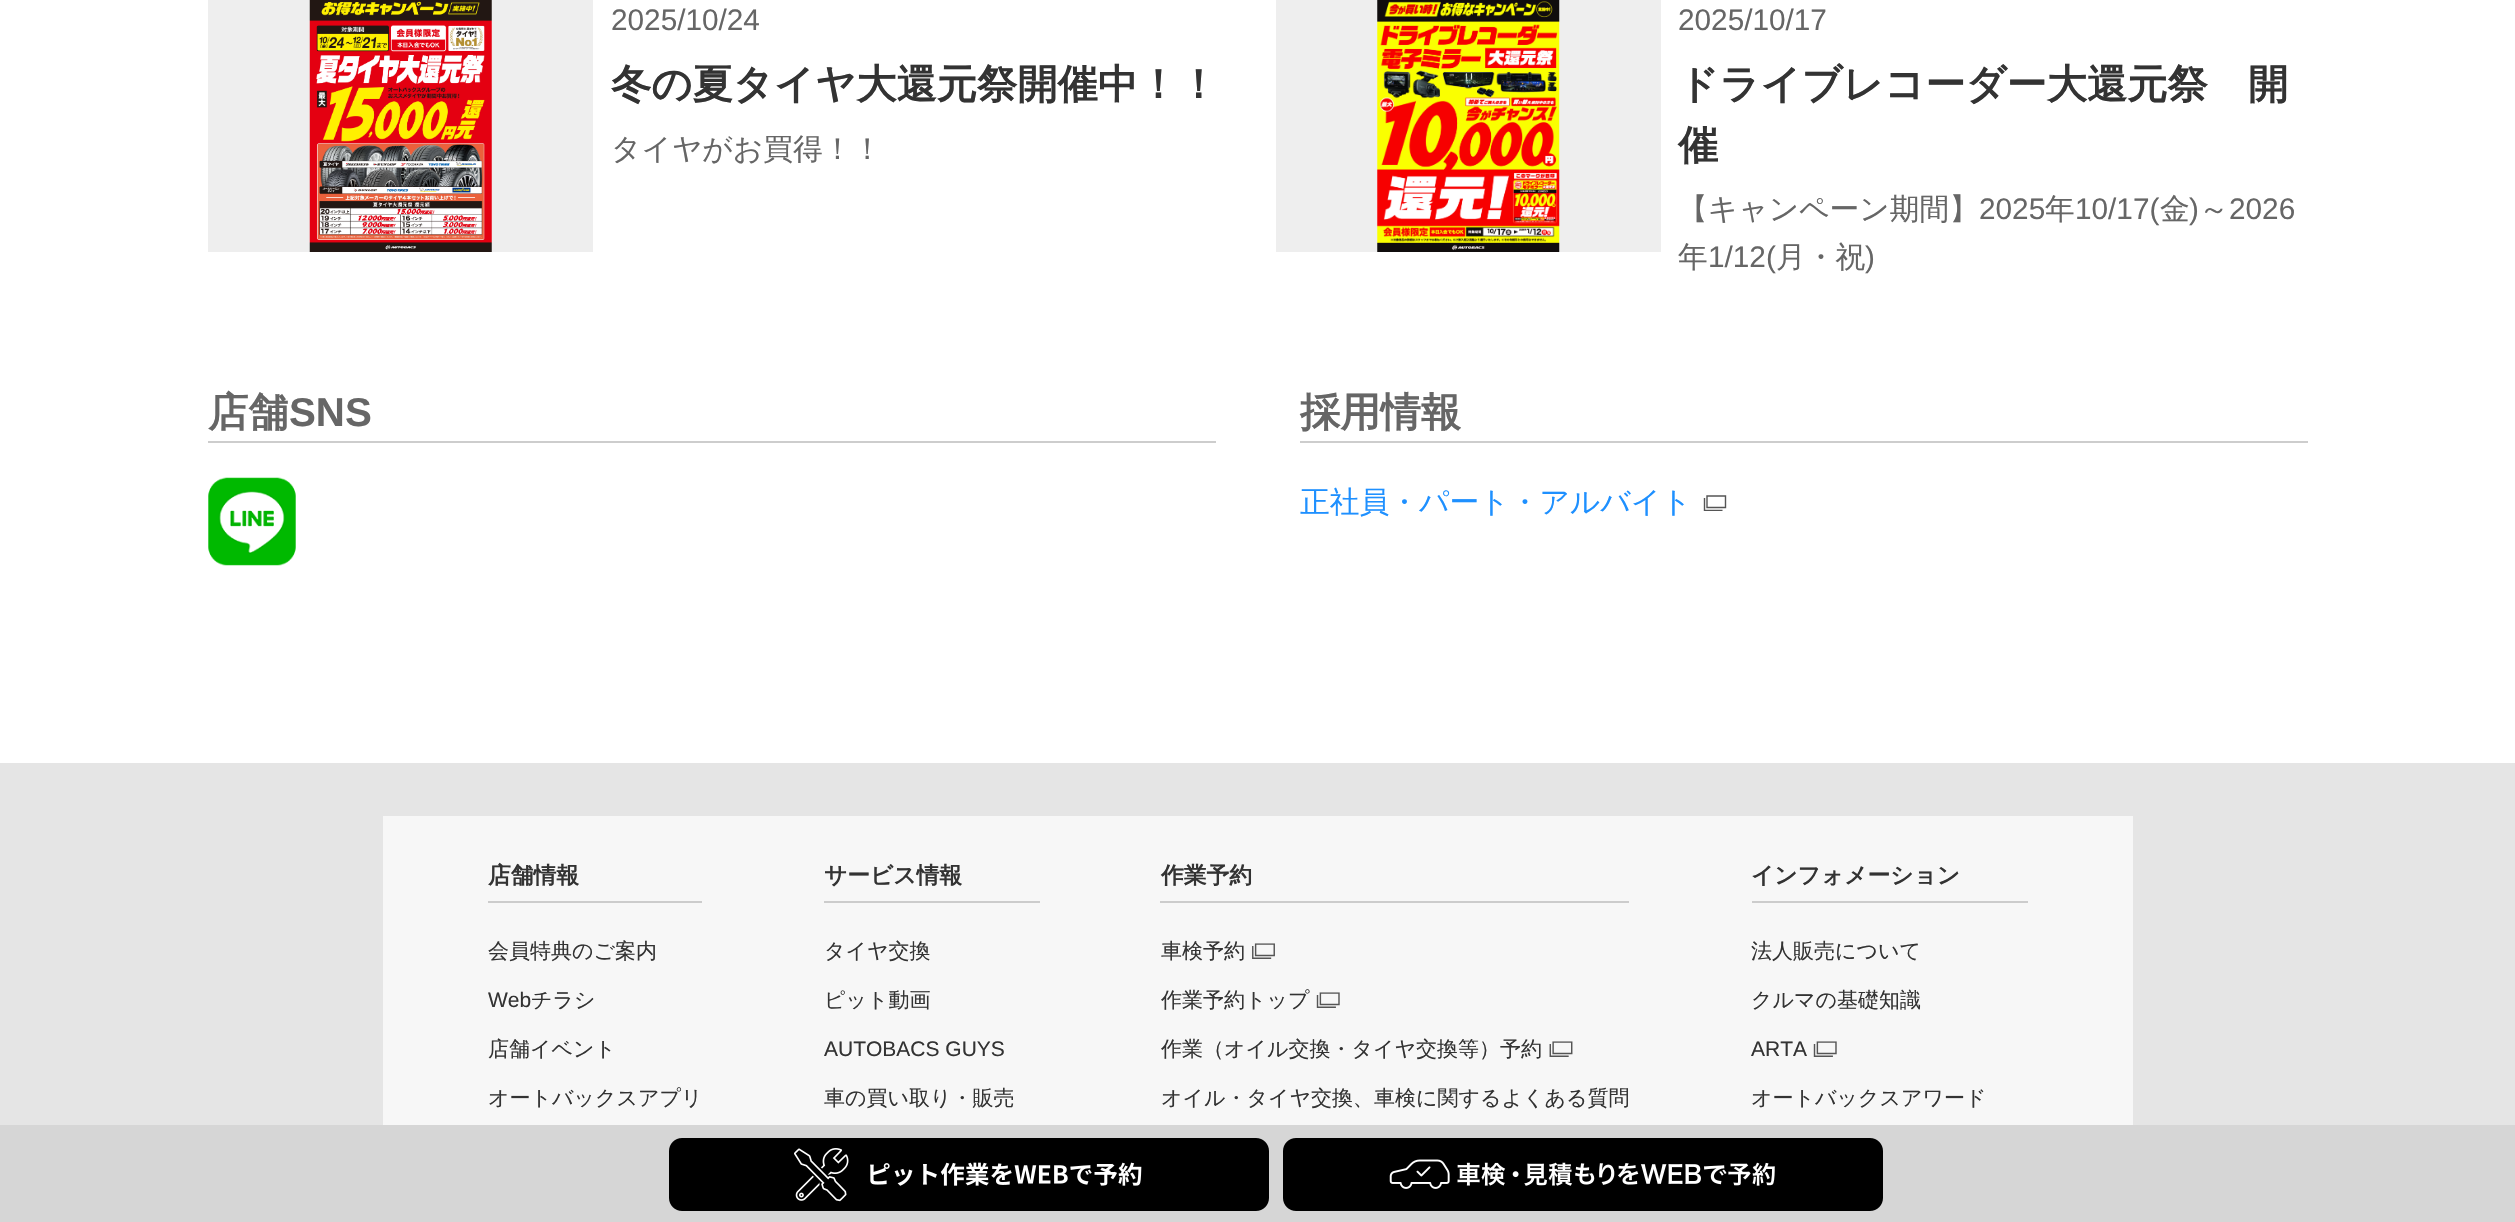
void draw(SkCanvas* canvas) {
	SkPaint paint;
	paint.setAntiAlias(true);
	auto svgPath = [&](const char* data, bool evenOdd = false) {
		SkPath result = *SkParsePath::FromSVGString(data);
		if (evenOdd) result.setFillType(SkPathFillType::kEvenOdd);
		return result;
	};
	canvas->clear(0xffffffff);
	paint.setColor(0xffeeeeee);
	canvas->drawRect(SkRect::MakeXYWH(208, 0, 385, 252), paint);
	canvas->drawImageRect(SkImages::DeferredFromEncodedData(SkData::MakeFromFileName("img1.png")), SkRect::MakeXYWH(309, 0, 183, 252), SkSamplingOptions());
	SkFont f1(fontMgr->matchFamilyStyle("Liberation Sans", SkFontStyle::Normal()), 29.75);
	f1.setSubpixel(true);
	paint.setColor(0xff666666);
	canvas->drawString("2025/10/24", 611, 30, f1, paint);
	SkFont f2(fontMgr->matchFamilyStyle("WenQuanYi Zen Hei", SkFontStyle::Bold()), 40.25);
	f2.setSubpixel(true);
	paint.setColor(0xff333333);
	canvas->drawString("冬の夏タイヤ大還元祭開催中！！", 611, 98, f2, paint);
	SkFont f3(fontMgr->matchFamilyStyle("WenQuanYi Zen Hei", SkFontStyle(500, SkFontStyle::kNormal_Width, SkFontStyle::kUpright_Slant)), 29.75);
	f3.setSubpixel(true);
	paint.setColor(0xff666666);
	canvas->drawString("タイヤがお買得！！", 611, 159, f3, paint);
	paint.setColor(0xffeeeeee);
	canvas->drawRect(SkRect::MakeXYWH(1276, 0, 385, 252), paint);
	canvas->drawImageRect(SkImages::DeferredFromEncodedData(SkData::MakeFromFileName("img2.png")), SkRect::MakeXYWH(1377, 0, 183, 252), SkSamplingOptions());
	paint.setColor(0xff666666);
	canvas->drawString("2025/10/17", 1678, 30, f1, paint);
	paint.setColor(0xff333333);
	canvas->drawString("ドライブレコーダー大還元祭　開", 1678, 98, f2, paint);
	canvas->drawString("催", 1678, 159, f2, paint);
	paint.setColor(0xff666666);
	canvas->drawString("【キャンペーン期間】", 1678, 219, f3, paint);
	canvas->drawString("2025", 1979, 219, f1, paint);
	canvas->drawString("年", 2045, 219, f3, paint);
	canvas->drawString("10/17(", 2075, 219, f1, paint);
	canvas->drawString("金", 2160, 219, f3, paint);
	canvas->drawString(")", 2189, 219, f1, paint);
	canvas->drawString("～", 2199, 219, f3, paint);
	canvas->drawString("2026", 2229, 219, f1, paint);
	canvas->drawString("年", 1678, 267, f3, paint);
	canvas->drawString("1/12(", 1708, 267, f1, paint);
	canvas->drawString("月・祝", 1776, 267, f3, paint);
	canvas->drawString(")", 1865, 267, f1, paint);
	paint.setColor(0xffcdcdcd);
	canvas->drawRect(SkRect::MakeXYWH(208, 441, 1008, 2), paint);
	paint.setColor(0xff666666);
	canvas->drawString("店舗", 208, 426, f2, paint);
	SkFont f4(fontMgr->matchFamilyStyle("Liberation Sans", SkFontStyle::Bold()), 40.25);
	f4.setSubpixel(true);
	canvas->drawString("SNS", 289, 426, f4, paint);
	canvas->drawImageRect(SkImages::DeferredFromEncodedData(SkData::MakeFromFileName("img3.png")), SkRect::MakeXYWH(208, 477, 88, 89), SkSamplingOptions());
	paint.setColor(0xffcdcdcd);
	canvas->drawRect(SkRect::MakeXYWH(1300, 441, 1008, 2), paint);
	paint.setColor(0xff666666);
	canvas->drawString("採用情報", 1300, 426, f2, paint);
	paint.setColor(0xff1e90ff);
	canvas->drawString("正社員・パート・アルバイト", 1300, 512, f3, paint);
	paint.setStroke(true);
	paint.setStrokeWidth(1.4);
	paint.setColor(0xff555555);
	canvas->drawPath(svgPath("M1707 496H1725.5V507.5H1707Z"), paint);
	canvas->save();
	canvas->clipRect(SkRect::MakeXYWH(1703, 495, 24, 16));
	canvas->drawPath(svgPath("M1704.5 498V510.5H1722.5"), paint);
	canvas->restore();
	paint.setStroke(false);
	paint.setColor(0xffd6d6d6);
	canvas->drawRect(SkRect::MakeXYWH(0, 1125, 2515, 97), paint);
	canvas->drawImageRect(SkImages::DeferredFromEncodedData(SkData::MakeFromFileName("img4.png")), SkRect::MakeXYWH(669, 1138, 600, 73), SkSamplingOptions());
	canvas->drawImageRect(SkImages::DeferredFromEncodedData(SkData::MakeFromFileName("img5.png")), SkRect::MakeXYWH(1283, 1138, 600, 73), SkSamplingOptions());
	paint.setColor(0xffe5e5e5);
	canvas->drawRect(SkRect::MakeXYWH(0, 763, 2515, 362), paint);
	paint.setColor(0xfff7f7f7);
	canvas->drawRect(SkRect::MakeXYWH(383, 816, 1750, 309), paint);
	paint.setColor(0xffcccccc);
	canvas->drawRect(SkRect::MakeXYWH(488, 901, 214, 2), paint);
	SkFont f5(fontMgr->matchFamilyStyle("WenQuanYi Zen Hei", SkFontStyle::Bold()), 22.75);
	f5.setSubpixel(true);
	paint.setColor(0xff333333);
	canvas->drawString("店舗情報", 488, 883, f5, paint);
	SkFont f6(fontMgr->matchFamilyStyle("WenQuanYi Zen Hei", SkFontStyle(500, SkFontStyle::kNormal_Width, SkFontStyle::kUpright_Slant)), 21);
	f6.setSubpixel(true);
	canvas->drawString("会員特典のご案内", 488, 958, f6, paint);
	SkFont f7(fontMgr->matchFamilyStyle("Liberation Sans", SkFontStyle::Normal()), 21);
	f7.setSubpixel(true);
	canvas->drawString("Web", 488, 1007, f7, paint);
	canvas->drawString("チラシ", 531, 1007, f6, paint);
	canvas->drawString("店舗イベント", 488, 1056, f6, paint);
	canvas->drawString("オートバックスアプリ", 488, 1105, f6, paint);
	paint.setColor(0xffcccccc);
	canvas->drawRect(SkRect::MakeXYWH(824, 901, 216, 2), paint);
	paint.setColor(0xff333333);
	canvas->drawString("サービス情報", 824, 883, f5, paint);
	canvas->drawString("タイヤ交換", 824, 958, f6, paint);
	canvas->drawString("ピット動画", 824, 1007, f6, paint);
	canvas->drawString("AUTOBACS GUYS", 824, 1056, f7, paint);
	canvas->drawString("車の買い取り・販売", 824, 1105, f6, paint);
	paint.setColor(0xffcccccc);
	canvas->drawRect(SkRect::MakeXYWH(1160, 901, 469, 2), paint);
	paint.setColor(0xff333333);
	canvas->drawString("作業予約", 1161, 883, f5, paint);
	canvas->drawString("車検予約", 1161, 958, f6, paint);
	canvas->drawImageRect(SkImages::DeferredFromEncodedData(SkData::MakeFromFileName("img6.png")), SkRect::MakeXYWH(1252, 943, 23, 16), SkSamplingOptions());
	canvas->drawString("作業予約トップ", 1161, 1007, f6, paint);
	canvas->drawImageRect(SkImages::DeferredFromEncodedData(SkData::MakeFromFileName("img7.png")), SkRect::MakeXYWH(1316, 992, 24, 16), SkSamplingOptions());
	canvas->drawString("作業（オイル交換・タイヤ交換等）予約", 1161, 1056, f6, paint);
	canvas->drawImageRect(SkImages::DeferredFromEncodedData(SkData::MakeFromFileName("img8.png")), SkRect::MakeXYWH(1549, 1041, 24, 16), SkSamplingOptions());
	canvas->drawString("オイル・タイヤ交換、車検に関するよくある質問", 1161, 1105, f6, paint);
	paint.setColor(0xffcccccc);
	canvas->drawRect(SkRect::MakeXYWH(1752, 901, 276, 2), paint);
	paint.setColor(0xff333333);
	canvas->drawString("インフォメーション", 1751, 883, f5, paint);
	canvas->drawString("法人販売について", 1751, 958, f6, paint);
	canvas->drawString("クルマの基礎知識", 1751, 1007, f6, paint);
	canvas->drawString("ARTA", 1751, 1056, f7, paint);
	canvas->drawImageRect(SkImages::DeferredFromEncodedData(SkData::MakeFromFileName("img7.png")), SkRect::MakeXYWH(1813, 1041, 24, 16), SkSamplingOptions());
	canvas->drawString("オートバックスアワード", 1751, 1105, f6, paint);
}
